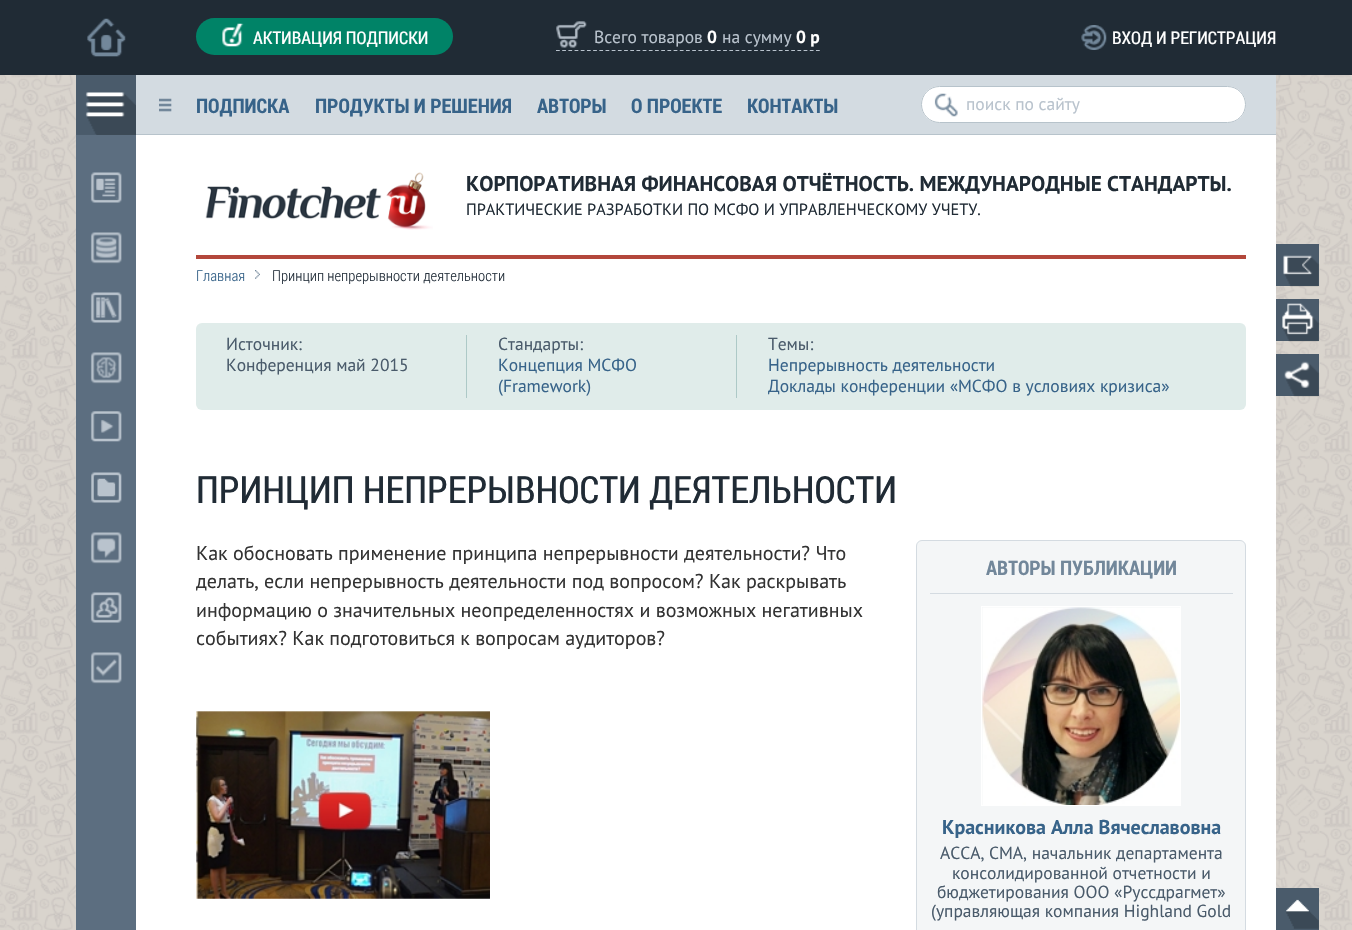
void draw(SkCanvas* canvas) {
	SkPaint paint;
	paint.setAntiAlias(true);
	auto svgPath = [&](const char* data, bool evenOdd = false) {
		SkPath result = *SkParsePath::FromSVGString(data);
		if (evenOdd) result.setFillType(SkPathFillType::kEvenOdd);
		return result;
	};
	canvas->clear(0xffd9d4cd);
	canvas->drawImageRect(SkImages::DeferredFromEncodedData(SkData::MakeFromFileName("img1.png")), SkRect::MakeXYWH(0, 75, 1352, 855), SkSamplingOptions());
	paint.setColor(0xff202b35);
	canvas->drawRect(SkRect::MakeXYWH(0, 0, 1352, 75), paint);
	canvas->drawImageRect(SkImages::DeferredFromEncodedData(SkData::MakeFromFileName("img2.png")), SkRect::MakeXYWH(87, 18, 39, 39), SkSamplingOptions());
	paint.setColor(0xff008367);
	canvas->drawRoundRect(SkRect::MakeXYWH(196, 18, 257, 37), 18.5, 18.5, paint);
	canvas->drawImageRect(SkImages::DeferredFromEncodedData(SkData::MakeFromFileName("img3.png")), SkRect::MakeXYWH(222, 23, 22, 24), SkSamplingOptions());
	SkFont f1(fontMgr->matchFamilyStyle("Roboto Condensed", SkFontStyle::Normal()), 17.5);
	f1.setSubpixel(true);
	paint.setColor(0xffffffff);
	canvas->drawString("АКТИВАЦИЯ ПОДПИСКИ", 253, 44, f1, paint);
	canvas->drawImageRect(SkImages::DeferredFromEncodedData(SkData::MakeFromFileName("img4.png")), SkRect::MakeXYWH(556, 21, 31, 27), SkSamplingOptions());
	paint.setStroke(true);
	paint.setStrokeWidth(1.2);
	paint.setColor(0xffb9c3cd);
	paint.setPathEffect(SkDashPathEffect::Make({{3.75f, 2.44f}}, 0));
	canvas->drawPath(svgPath("M556 50.5H820"), paint);
	paint.setPathEffect(nullptr);
	SkFont f2(fontMgr->matchFamilyStyle("PT Sans", SkFontStyle::Normal()), 17.5);
	f2.setSubpixel(true);
	paint.setStroke(false);
	canvas->drawString("Всего товаров", 594, 43, f2, paint);
	SkFont f3(fontMgr->matchFamilyStyle("PT Sans", SkFontStyle::Bold()), 17.5);
	f3.setSubpixel(true);
	paint.setColor(0xffffffff);
	canvas->drawString("0", 707, 43, f3, paint);
	paint.setColor(0xffb9c3cd);
	canvas->drawString("на сумму", 722, 43, f2, paint);
	paint.setColor(0xffffffff);
	canvas->drawString("0 р", 796, 43, f3, paint);
	canvas->drawImageRect(SkImages::DeferredFromEncodedData(SkData::MakeFromFileName("img5.png")), SkRect::MakeXYWH(1081, 25, 26, 25), SkSamplingOptions());
	canvas->drawString("ВХОД И РЕГИСТРАЦИЯ", 1112, 44, f1, paint);
	canvas->drawRect(SkRect::MakeXYWH(136, 135, 1140, 795), paint);
	paint.setColor(0xff5c6e80);
	canvas->drawRect(SkRect::MakeXYWH(76, 135, 60, 795), paint);
	canvas->drawImageRect(SkImages::DeferredFromEncodedData(SkData::MakeFromFileName("img6.png")), SkRect::MakeXYWH(76, 75, 60, 60), SkSamplingOptions());
	canvas->drawImageRect(SkImages::DeferredFromEncodedData(SkData::MakeFromFileName("img7.png")), SkRect::MakeXYWH(90, 172, 32, 31), SkSamplingOptions());
	canvas->drawImageRect(SkImages::DeferredFromEncodedData(SkData::MakeFromFileName("img8.png")), SkRect::MakeXYWH(90, 232, 32, 32), SkSamplingOptions());
	canvas->drawImageRect(SkImages::DeferredFromEncodedData(SkData::MakeFromFileName("img9.png")), SkRect::MakeXYWH(90, 292, 32, 31), SkSamplingOptions());
	canvas->drawImageRect(SkImages::DeferredFromEncodedData(SkData::MakeFromFileName("img10.png")), SkRect::MakeXYWH(90, 352, 32, 32), SkSamplingOptions());
	canvas->drawImageRect(SkImages::DeferredFromEncodedData(SkData::MakeFromFileName("img11.png")), SkRect::MakeXYWH(90, 411, 32, 31), SkSamplingOptions());
	canvas->drawImageRect(SkImages::DeferredFromEncodedData(SkData::MakeFromFileName("img12.png")), SkRect::MakeXYWH(91, 472, 31, 31), SkSamplingOptions());
	canvas->drawImageRect(SkImages::DeferredFromEncodedData(SkData::MakeFromFileName("img13.png")), SkRect::MakeXYWH(90, 532, 32, 32), SkSamplingOptions());
	canvas->drawImageRect(SkImages::DeferredFromEncodedData(SkData::MakeFromFileName("img14.png")), SkRect::MakeXYWH(90, 592, 32, 31), SkSamplingOptions());
	canvas->drawImageRect(SkImages::DeferredFromEncodedData(SkData::MakeFromFileName("img15.png")), SkRect::MakeXYWH(90, 652, 32, 32), SkSamplingOptions());
	paint.setColor(0xffd3dbe1);
	canvas->drawRect(SkRect::MakeXYWH(136, 75, 1140, 59), paint);
	paint.setColor(0xffb7c3cb);
	canvas->drawRect(SkRect::MakeXYWH(136, 134, 1140, 1), paint);
	canvas->drawImageRect(SkImages::DeferredFromEncodedData(SkData::MakeFromFileName("img16.png")), SkRect::MakeXYWH(159, 98, 13, 14), SkSamplingOptions());
	SkFont f4(fontMgr->matchFamilyStyle("Roboto Condensed", SkFontStyle::Bold()), 20);
	f4.setSubpixel(true);
	paint.setColor(0xff376389);
	canvas->drawString("ПОДПИСКА", 196, 113, f4, paint);
	canvas->drawString("ПРОДУКТЫ И РЕШЕНИЯ", 315, 113, f4, paint);
	canvas->drawString("АВТОРЫ", 537, 113, f4, paint);
	canvas->drawString("О ПРОЕКТЕ", 631, 113, f4, paint);
	canvas->drawString("КОНТАКТЫ", 747, 113, f4, paint);
	paint.setColor(0xffffffff);
	canvas->drawRoundRect(SkRect::MakeXYWH(921, 86, 325, 37), 18.5, 18.5, paint);
	canvas->drawImageRect(SkImages::DeferredFromEncodedData(SkData::MakeFromFileName("img17.png")), SkRect::MakeXYWH(934, 93, 24, 24), SkSamplingOptions());
	paint.setStroke(true);
	paint.setStrokeWidth(1);
	paint.setColor(0xffb7c3cb);
	canvas->drawRoundRect(SkRect::MakeXYWH(921.5, 86.5, 324, 36), 18, 18, paint);
	paint.setStroke(false);
	paint.setColor(0xffb9c3cd);
	canvas->drawString("поиск по сайту", 966, 110, f2, paint);
	paint.setColor(0xffb3473b);
	canvas->drawRect(SkRect::MakeXYWH(196, 255, 1050, 4), paint);
	canvas->drawImageRect(SkImages::DeferredFromEncodedData(SkData::MakeFromFileName("img18.png")), SkRect::MakeXYWH(205, 172, 228, 58), SkSamplingOptions());
	SkFont f5(fontMgr->matchFamilyStyle("PT Sans", SkFontStyle::Bold()), 21.25);
	f5.setSubpixel(true);
	paint.setColor(0xff202b35);
	canvas->drawString("КОРПОРАТИВНАЯ ФИНАНСОВАЯ ОТЧЁТНОСТЬ. МЕЖДУНАРОДНЫЕ СТАНДАРТЫ.", 466, 191, f5, paint);
	SkFont f6(fontMgr->matchFamilyStyle("PT Sans", SkFontStyle::Normal()), 16.25);
	f6.setSubpixel(true);
	canvas->drawString("ПРАКТИЧЕСКИЕ РАЗРАБОТКИ ПО МСФО И УПРАВЛЕНЧЕСКОМУ УЧЕТУ.", 466, 215, f6, paint);
	SkFont f7(fontMgr->matchFamilyStyle("Roboto Condensed", SkFontStyle(300, SkFontStyle::kNormal_Width, SkFontStyle::kUpright_Slant)), 15);
	f7.setSubpixel(true);
	paint.setColor(0xff376389);
	canvas->drawString("Главная", 196, 281, f7, paint);
	canvas->drawImageRect(SkImages::DeferredFromEncodedData(SkData::MakeFromFileName("img19.png")), SkRect::MakeXYWH(255, 270, 5, 9), SkSamplingOptions());
	paint.setColor(0xff2a3540);
	canvas->drawString("Принцип непрерывности деятельности", 272, 281, f7, paint);
	paint.setColor(0xffe0ecea);
	canvas->drawRoundRect(SkRect::MakeXYWH(196, 323, 1050, 87), 6, 6, paint);
	paint.setColor(0xff4a5b6b);
	canvas->drawString("Источник:", 226, 350, f2, paint);
	canvas->drawString("Конференция май 2015", 226, 371, f2, paint);
	paint.setColor(0xffadc9c7);
	canvas->drawRect(SkRect::MakeXYWH(466, 335, 1, 63), paint);
	paint.setColor(0xff4a5b6b);
	canvas->drawString("Стандарты:", 498, 350, f2, paint);
	paint.setColor(0xff376389);
	canvas->drawString("Концепция МСФО", 498, 371, f2, paint);
	canvas->drawString("(Framework)", 498, 392, f2, paint);
	paint.setColor(0xffadc9c7);
	canvas->drawRect(SkRect::MakeXYWH(736, 335, 1, 63), paint);
	paint.setColor(0xff4a5b6b);
	canvas->drawString("Темы:", 768, 350, f2, paint);
	paint.setColor(0xff376389);
	canvas->drawString("Непрерывность деятельности", 768, 371, f2, paint);
	canvas->drawString("Доклады конференции «МСФО в условиях кризиса»", 768, 392, f2, paint);
	SkFont f8(fontMgr->matchFamilyStyle("Roboto Condensed", SkFontStyle::Normal()), 37.5);
	f8.setSubpixel(true);
	paint.setColor(0xff202b35);
	canvas->drawString("ПРИНЦИП НЕПРЕРЫВНОСТИ ДЕЯТЕЛЬНОСТИ", 196, 503, f8, paint);
	SkFont f9(fontMgr->matchFamilyStyle("PT Sans", SkFontStyle::Normal()), 20);
	f9.setSubpixel(true);
	paint.setColor(0xff333333);
	canvas->drawString("Как обосновать применение принципа непрерывности деятельности? Что", 196, 560, f9, paint);
	canvas->drawString("делать, если непрерывность деятельности под вопросом? Как раскрывать", 196, 588, f9, paint);
	paint.setColor(0xfff4f6f7);
	canvas->drawRoundRect(SkRect::MakeXYWH(916.5, 540.5, 329, 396), 5.5, 5.5, paint);
	paint.setStroke(true);
	paint.setColor(0xffd4dbe1);
	canvas->drawRoundRect(SkRect::MakeXYWH(916.5, 540.5, 329, 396), 5.5, 5.5, paint);
	paint.setStroke(false);
	paint.setColor(0xff72879a);
	canvas->drawString("АВТОРЫ ПУБЛИКАЦИИ", 986, 575, f4, paint);
	paint.setColor(0xffd4dbe1);
	canvas->drawRect(SkRect::MakeXYWH(930, 593, 303, 1), paint);
	paint.setStroke(true);
	paint.setColor(0xffffffff);
	canvas->drawRect(SkRect::MakeXYWH(981.5, 606.5, 199, 199), paint);
	canvas->drawImageRect(SkImages::DeferredFromEncodedData(SkData::MakeFromFileName("img20.png")), SkRect::MakeXYWH(982, 607, 198, 198), SkSamplingOptions());
	SkFont f10(fontMgr->matchFamilyStyle("PT Sans", SkFontStyle::Bold()), 20);
	f10.setSubpixel(true);
	paint.setStroke(false);
	paint.setColor(0xff376389);
	canvas->drawString("Красникова Алла Вячеславовна", 942, 834, f10, paint);
	paint.setColor(0xff4a5b6b);
	canvas->drawString("ACCA, CMA, начальник департамента", 940, 859, f2, paint);
	canvas->drawString("консолидированной отчетности и", 952, 879, f2, paint);
	canvas->drawString("бюджетирования ООО «Руссдрагмет»", 937, 898, f2, paint);
	canvas->drawString("(управляющая компания Highland Gold", 931, 917, f2, paint);
	paint.setColor(0xff333333);
	canvas->drawString("информацию о значительных неопределенностях и возможных негативных", 196, 617, f9, paint);
	canvas->drawString("событиях? Как подготовиться к вопросам аудиторов?", 196, 645, f9, paint);
	canvas->drawImageRect(SkImages::DeferredFromEncodedData(SkData::MakeFromFileName("img21.png")), SkRect::MakeXYWH(196, 711, 294, 188), SkSamplingOptions());
	paint.setColor(0xff4a5b6b);
	canvas->drawRect(SkRect::MakeXYWH(1276, 244, 43, 42), paint);
	canvas->drawImageRect(SkImages::DeferredFromEncodedData(SkData::MakeFromFileName("img22.png")), SkRect::MakeXYWH(1283, 255, 37, 32), SkSamplingOptions());
	canvas->drawRect(SkRect::MakeXYWH(1276, 299, 43, 42), paint);
	canvas->drawImageRect(SkImages::DeferredFromEncodedData(SkData::MakeFromFileName("img23.png")), SkRect::MakeXYWH(1282, 303, 38, 39), SkSamplingOptions());
	canvas->drawRect(SkRect::MakeXYWH(1276, 354, 43, 42), paint);
	canvas->drawImageRect(SkImages::DeferredFromEncodedData(SkData::MakeFromFileName("img24.png")), SkRect::MakeXYWH(1284, 361, 36, 36), SkSamplingOptions());
	canvas->drawRect(SkRect::MakeXYWH(1276, 888, 43, 42), paint);
	canvas->drawImageRect(SkImages::DeferredFromEncodedData(SkData::MakeFromFileName("img25.png")), SkRect::MakeXYWH(1286, 899, 33, 30), SkSamplingOptions());
}
